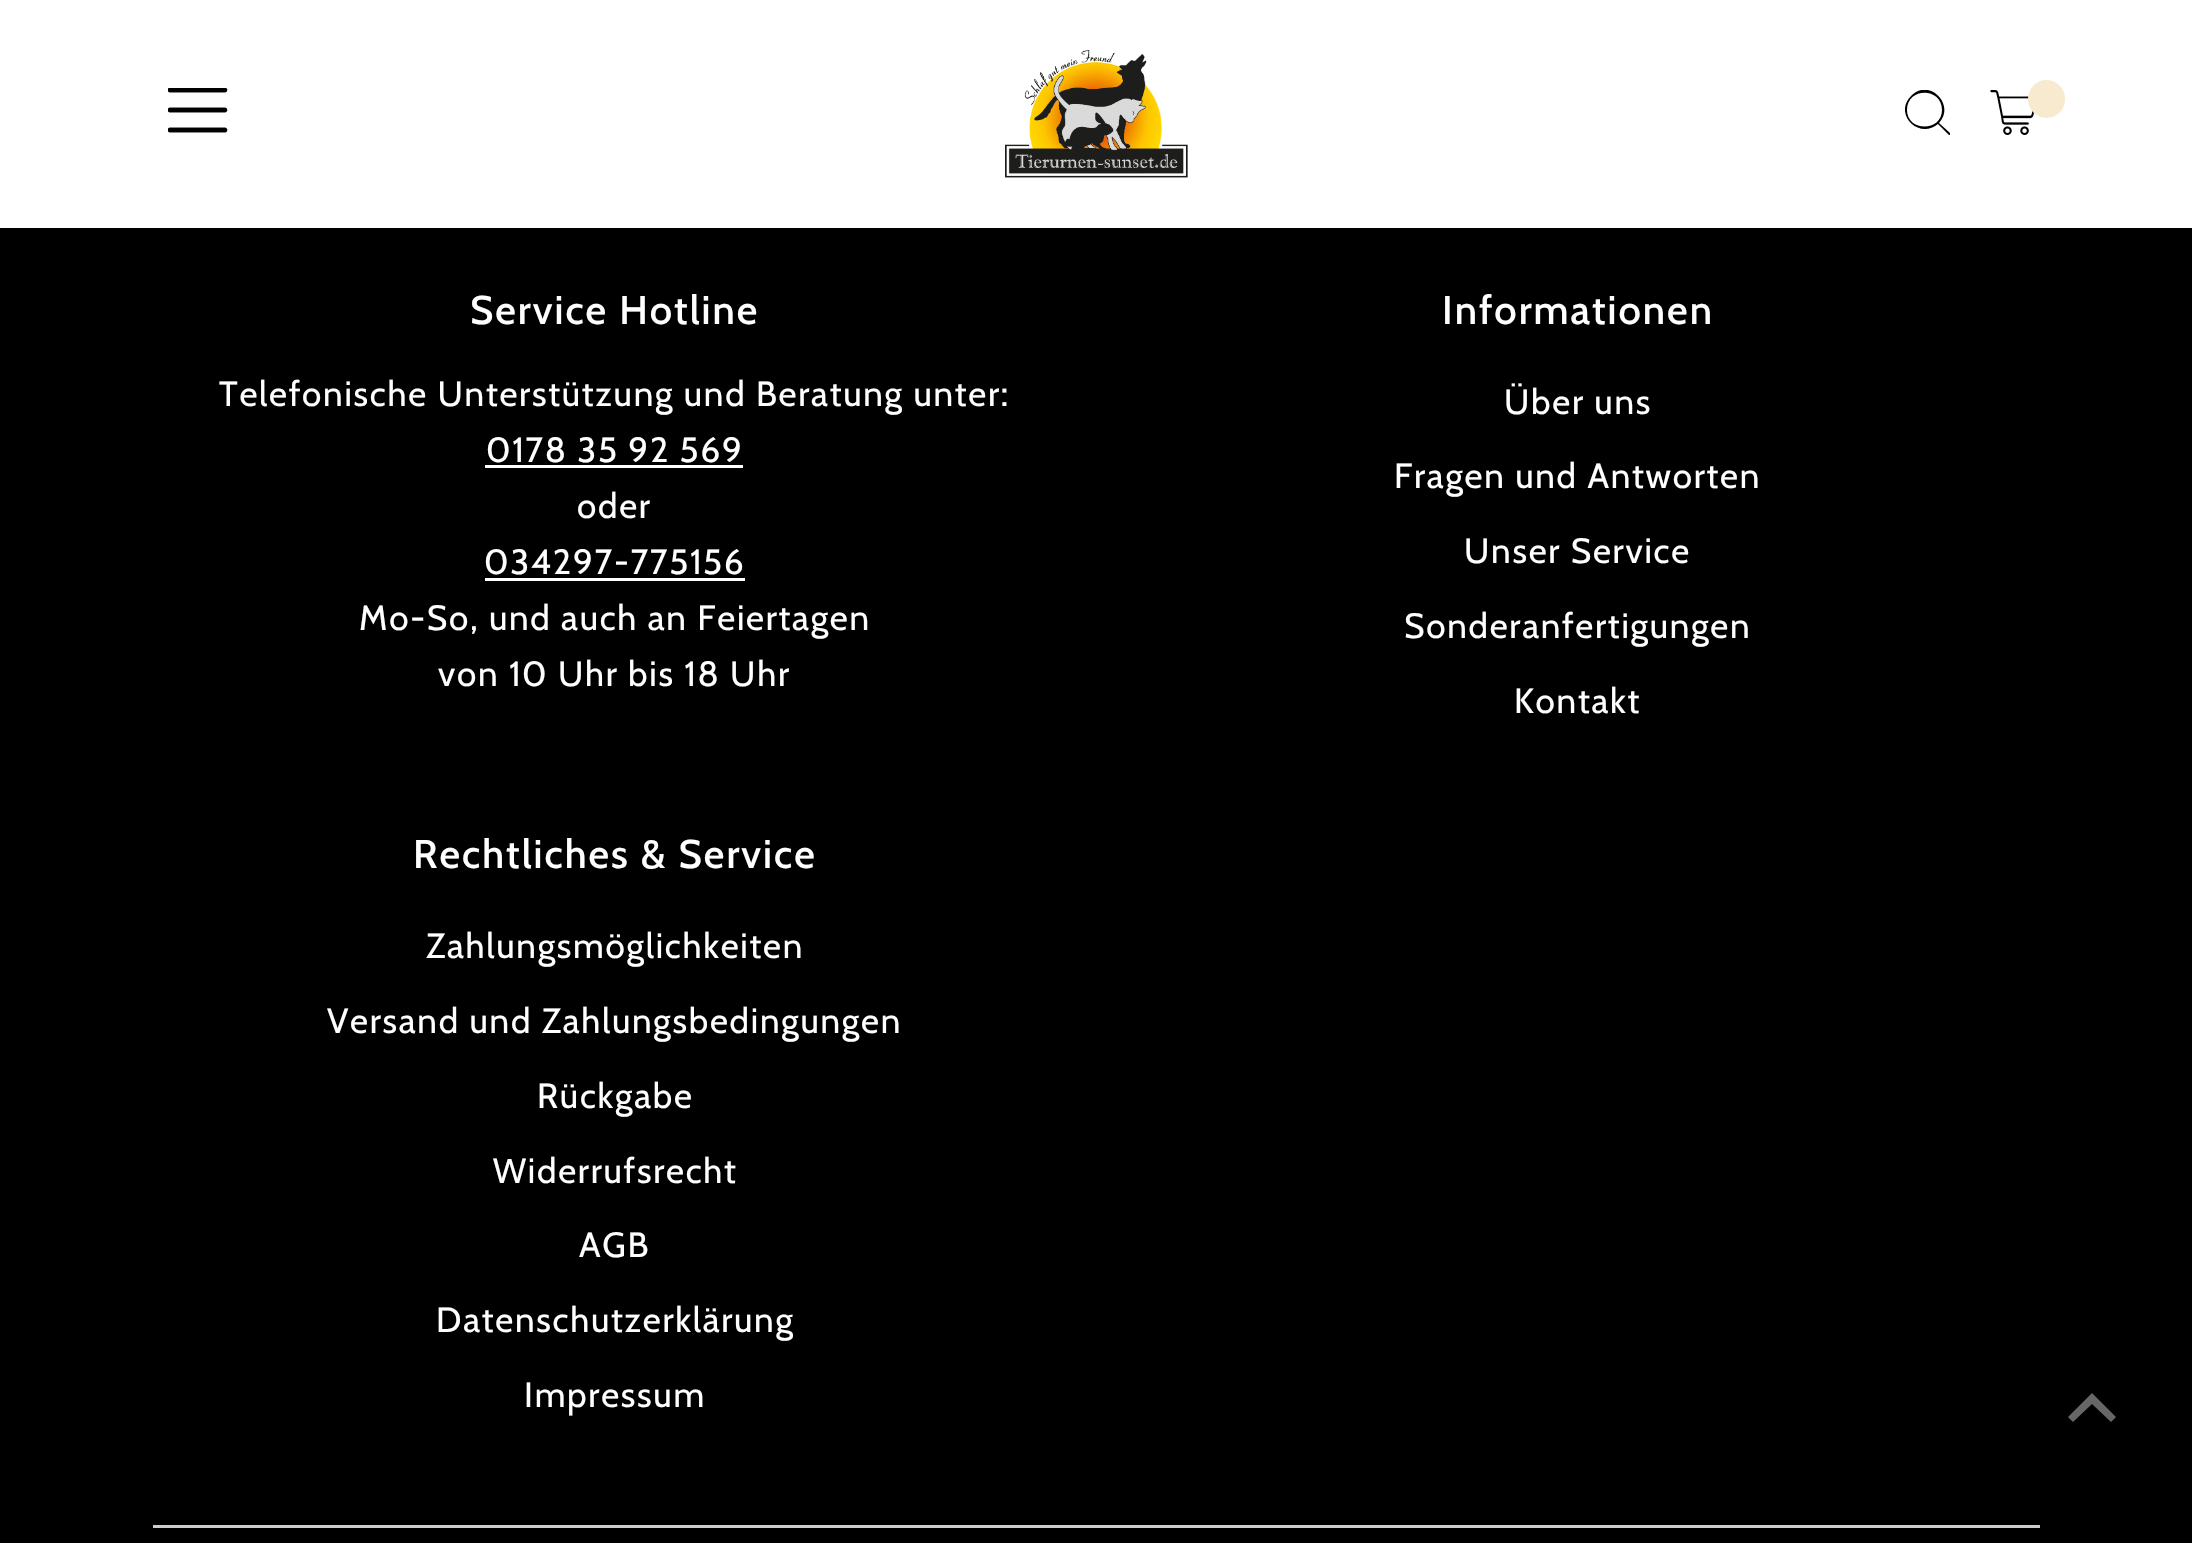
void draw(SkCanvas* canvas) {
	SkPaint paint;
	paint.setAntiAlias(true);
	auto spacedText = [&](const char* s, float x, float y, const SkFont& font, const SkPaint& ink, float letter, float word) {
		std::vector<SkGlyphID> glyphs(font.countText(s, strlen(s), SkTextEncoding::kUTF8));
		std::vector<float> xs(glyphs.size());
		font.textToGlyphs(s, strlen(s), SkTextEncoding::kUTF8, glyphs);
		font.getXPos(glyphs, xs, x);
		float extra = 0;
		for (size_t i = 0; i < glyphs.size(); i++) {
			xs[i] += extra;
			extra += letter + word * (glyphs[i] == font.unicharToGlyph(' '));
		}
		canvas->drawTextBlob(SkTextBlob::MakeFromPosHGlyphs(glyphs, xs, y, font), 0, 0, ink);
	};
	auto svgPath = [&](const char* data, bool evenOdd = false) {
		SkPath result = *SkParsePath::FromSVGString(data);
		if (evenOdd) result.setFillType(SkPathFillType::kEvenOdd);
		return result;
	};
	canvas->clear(0xff000000);
	paint.setColor(0xffffffff);
	canvas->drawRect(SkRect::MakeXYWH(0, 0, 2192, 228), paint);
	canvas->drawImageRect(SkImages::DeferredFromEncodedData(SkData::MakeFromFileName("img1.png")), SkRect::MakeXYWH(168, 88, 60, 45), SkSamplingOptions());
	canvas->drawImageRect(SkImages::DeferredFromEncodedData(SkData::MakeFromFileName("img2.png")), SkRect::MakeXYWH(1005, 50, 183, 128), SkSamplingOptions());
	canvas->save();
	canvas->clipRect(SkRect::MakeXYWH(1905, 90, 45, 45));
	paint.setColor(0xff000000);
	canvas->drawPath(svgPath("M1950 133L1939 123C1956 105 1929 77 1911 96C1893 114 1919 140 1938 124L1949 135C1950 135 1951 134 1950 133ZM1907 110C1907 87 1942 87 1942 110C1942 132 1907 132 1907 110Z"), paint);
	canvas->restore();
	canvas->drawImageRect(SkImages::DeferredFromEncodedData(SkData::MakeFromFileName("img3.png")), SkRect::MakeXYWH(1990, 90, 44, 45), SkSamplingOptions());
	paint.setColor(0xfff8eace);
	canvas->drawRoundRect(SkRect::MakeXYWH(2028, 80, 37, 38), 18.5, 18.5, paint);
	SkFont f1(fontMgr->matchFamilyStyle("Cabin", SkFontStyle(500, SkFontStyle::kNormal_Width, SkFontStyle::kUpright_Slant)), 40);
	f1.setSubpixel(true);
	paint.setColor(0xffffffff);
	spacedText("Service Hotline", 470, 324, f1, paint, 2, 0);
	SkFont f2(fontMgr->matchFamilyStyle("Cabin", SkFontStyle::Normal()), 35);
	f2.setSubpixel(true);
	spacedText("Telefonische Unterstützung und Beratung unter:", 219, 406, f2, paint, 1.75, 0);
	spacedText("0178 35 92 569", 486, 462, f2, paint, 1.75, 0);
	canvas->drawRect(SkRect::MakeXYWH(485, 465, 258, 3), paint);
	spacedText("oder", 577, 518, f2, paint, 1.75, 0);
	spacedText("034297-775156", 484, 574, f2, paint, 1.75, 0);
	canvas->drawRect(SkRect::MakeXYWH(485, 578, 260, 3), paint);
	spacedText("Mo-So, und auch an Feiertagen", 359, 630, f2, paint, 1.75, 0);
	spacedText("von 10 Uhr bis 18 Uhr", 438, 686, f2, paint, 1.75, 0);
	spacedText("Informationen", 1442, 324, f1, paint, 2, 0);
	spacedText("Über uns", 1504, 414, f2, paint, 1.75, 0);
	spacedText("Fragen und Antworten", 1394, 488, f2, paint, 1.75, 0);
	spacedText("Unser Service", 1464, 563, f2, paint, 1.75, 0);
	spacedText("Sonderanfertigungen", 1404, 638, f2, paint, 1.75, 0);
	spacedText("Kontakt", 1514, 713, f2, paint, 1.75, 0);
	spacedText("Rechtliches & Service", 413, 868, f1, paint, 2, 0);
	spacedText("Zahlungsmöglichkeiten", 426, 958, f2, paint, 1.75, 0);
	spacedText("Versand und Zahlungsbedingungen", 327, 1033, f2, paint, 1.75, 0);
	spacedText("Rückgabe", 537, 1108, f2, paint, 1.75, 0);
	spacedText("Widerrufsrecht", 493, 1183, f2, paint, 1.75, 0);
	spacedText("AGB", 579, 1257, f2, paint, 1.75, 0);
	spacedText("Datenschutzerklärung", 436, 1332, f2, paint, 1.75, 0);
	spacedText("Impressum", 524, 1407, f2, paint, 1.75, 0);
	paint.setColor(0xffcccccc);
	canvas->drawRect(SkRect::MakeXYWH(153, 1525, 1887, 3), paint);
	paint.setColor(0xff666666);
	canvas->drawPath(svgPath("M2092 1393L2068 1417L2073 1422L2092 1404L2111 1422L2116 1417Z"), paint);
}
